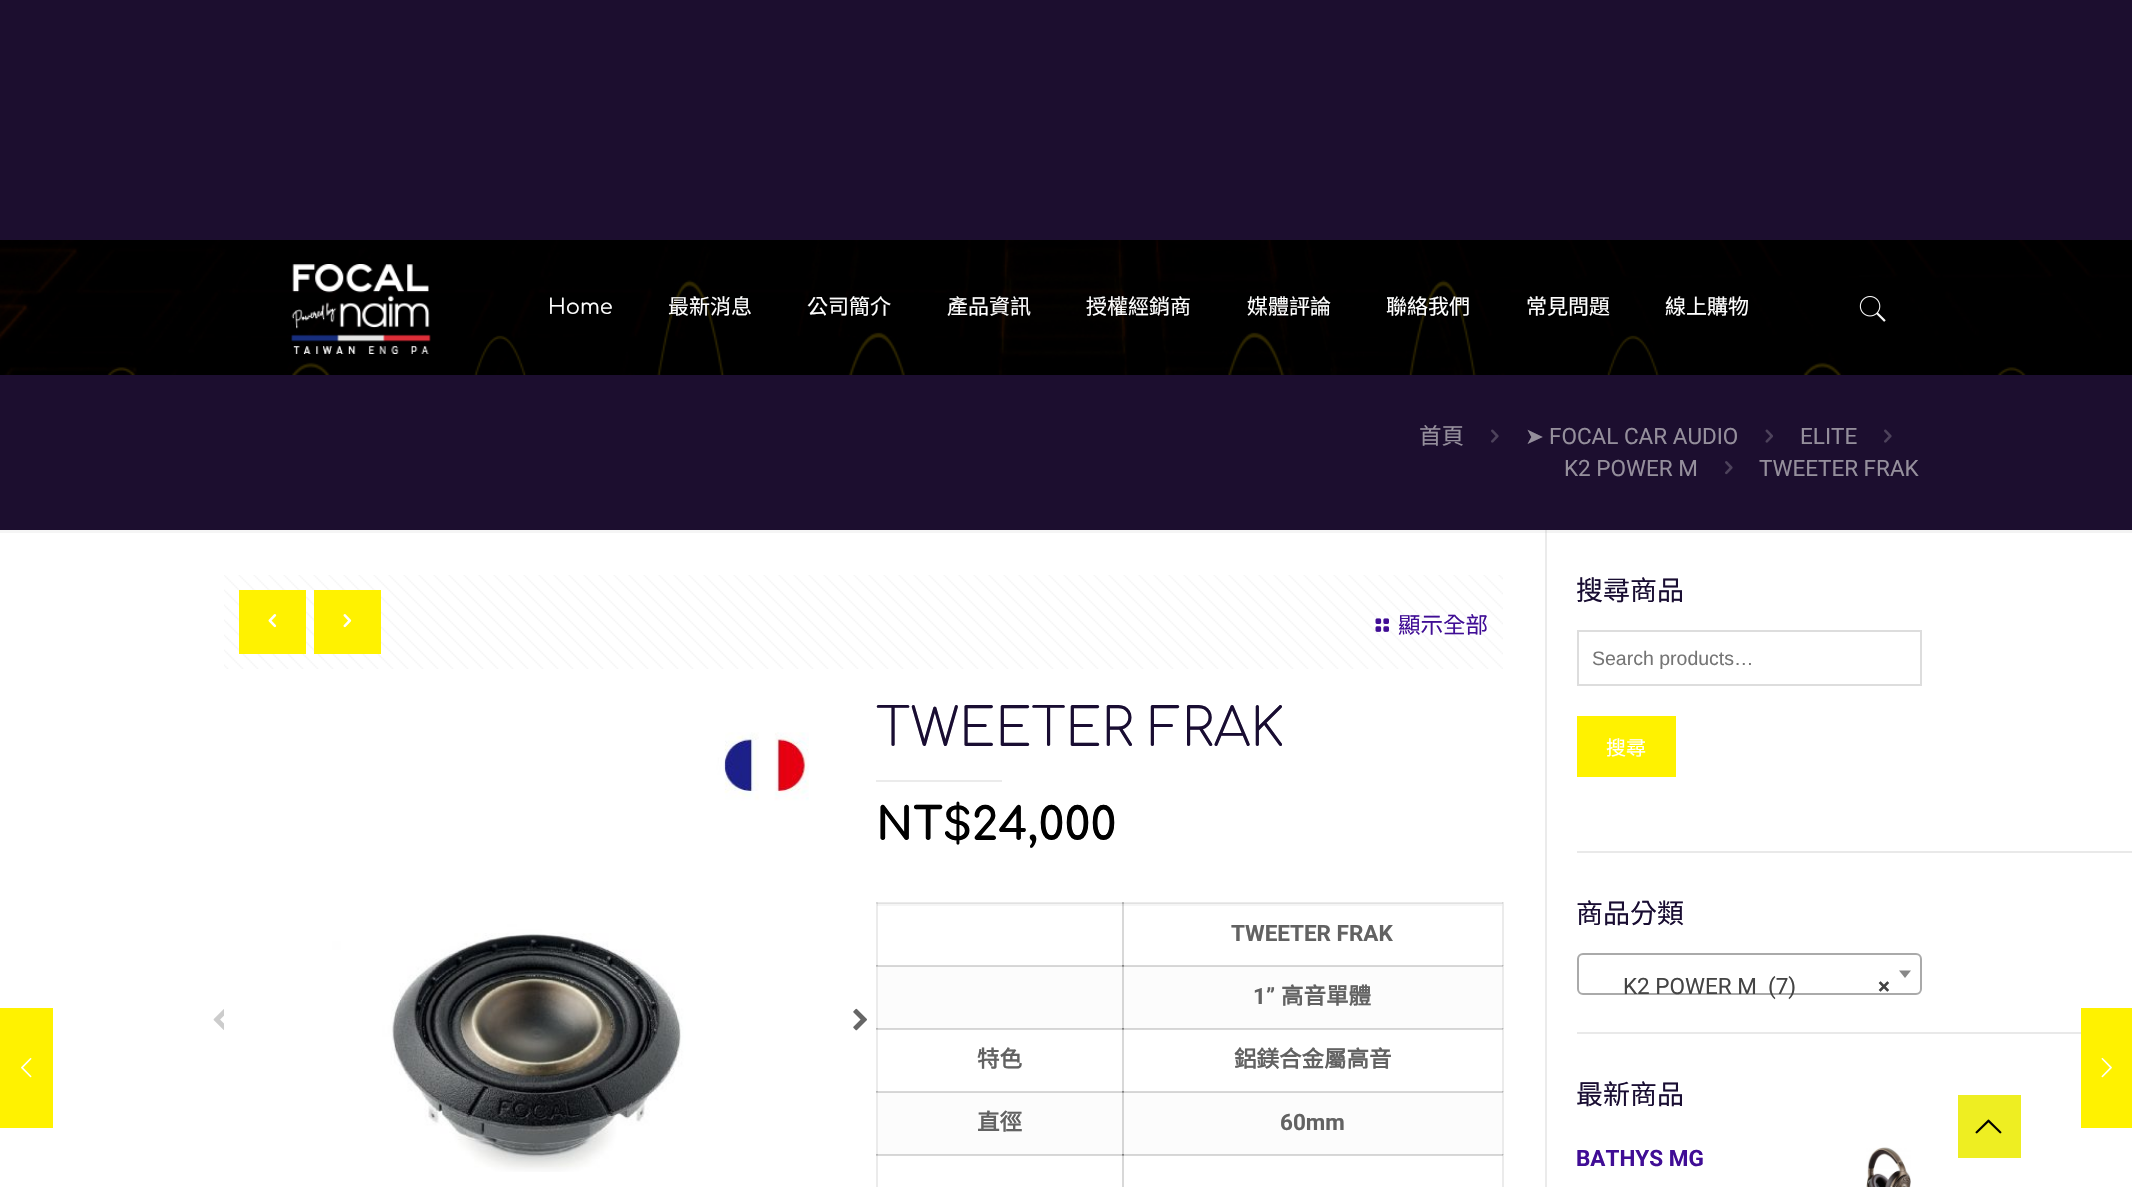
void draw(SkCanvas* canvas) {
	SkPaint paint;
	paint.setAntiAlias(true);
	auto svgPath = [&](const char* data, bool evenOdd = false) {
		SkPath result = *SkParsePath::FromSVGString(data);
		if (evenOdd) result.setFillType(SkPathFillType::kEvenOdd);
		return result;
	};
	canvas->clear(0xffffffff);
	paint.setColor(0xfffff200);
	canvas->drawRect(SkRect::MakeXYWH(0, 1008, 53, 120), paint);
	canvas->drawImageRect(SkImages::DeferredFromEncodedData(SkData::MakeFromFileName("img1.png")), SkRect::MakeXYWH(21, 1057, 11, 21), SkSamplingOptions());
	paint.setColor(0xfff5f5f5);
	canvas->drawRect(SkRect::MakeXYWH(0, 530, 1545, 3), paint);
	paint.setColor(0xffebebeb);
	canvas->drawRect(SkRect::MakeXYWH(876, 902, 2, 285), paint);
	canvas->drawRect(SkRect::MakeXYWH(876, 902, 248, 1), paint);
	paint.setColor(0xffd8d8d8);
	canvas->drawRect(SkRect::MakeXYWH(876, 902, 2, 2), paint);
	canvas->drawRect(SkRect::MakeXYWH(1122, 902, 2, 64), paint);
	paint.setColor(0xffebebeb);
	canvas->drawRect(SkRect::MakeXYWH(1502, 902, 2, 285), paint);
	canvas->drawRect(SkRect::MakeXYWH(1122, 902, 381, 1), paint);
	paint.setColor(0xffb7b7b7);
	canvas->drawRect(SkRect::MakeXYWH(1122, 902, 2, 1), paint);
	paint.setColor(0xffd8d8d8);
	canvas->drawRect(SkRect::MakeXYWH(1502, 902, 1, 2), paint);
	canvas->drawRect(SkRect::MakeXYWH(876, 965, 248, 1), paint);
	paint.setColor(0xffc7c7c7);
	canvas->drawRect(SkRect::MakeXYWH(876, 966, 2, 1), paint);
	paint.setColor(0xffb7b7b7);
	canvas->drawRect(SkRect::MakeXYWH(876, 965, 2, 1), paint);
	paint.setColor(0xffd8d8d8);
	canvas->drawRect(SkRect::MakeXYWH(1122, 965, 382, 1), paint);
	paint.setColor(0xff848484);
	canvas->drawRect(SkRect::MakeXYWH(1122, 965, 2, 1), paint);
	paint.setColor(0xffc7c7c7);
	canvas->drawRect(SkRect::MakeXYWH(1502, 965, 1, 2), paint);
	paint.setColor(0xffb7b7b7);
	canvas->drawRect(SkRect::MakeXYWH(1502, 965, 1, 1), paint);
	paint.setColor(0xffd8d8d8);
	canvas->drawRect(SkRect::MakeXYWH(876, 1029, 248, 1), paint);
	paint.setColor(0xffc7c7c7);
	canvas->drawRect(SkRect::MakeXYWH(876, 1029, 2, 1), paint);
	paint.setColor(0xffb7b7b7);
	canvas->drawRect(SkRect::MakeXYWH(876, 1028, 2, 1), paint);
	paint.setColor(0xffd8d8d8);
	canvas->drawRect(SkRect::MakeXYWH(1122, 1028, 2, 64), paint);
	canvas->drawRect(SkRect::MakeXYWH(1502, 1028, 2, 1), paint);
	canvas->drawRect(SkRect::MakeXYWH(1122, 1029, 381, 1), paint);
	paint.setColor(0xff9b9b9b);
	canvas->drawRect(SkRect::MakeXYWH(1122, 1029, 2, 1), paint);
	paint.setColor(0xffc7c7c7);
	canvas->drawRect(SkRect::MakeXYWH(1502, 1028, 1, 2), paint);
	paint.setColor(0xffb7b7b7);
	canvas->drawRect(SkRect::MakeXYWH(1502, 1028, 1, 1), paint);
	paint.setColor(0xffd8d8d8);
	canvas->drawRect(SkRect::MakeXYWH(876, 1091, 248, 1), paint);
	paint.setColor(0xffc7c7c7);
	canvas->drawRect(SkRect::MakeXYWH(876, 1092, 2, 1), paint);
	paint.setColor(0xffb7b7b7);
	canvas->drawRect(SkRect::MakeXYWH(876, 1091, 2, 1), paint);
	paint.setColor(0xffd8d8d8);
	canvas->drawRect(SkRect::MakeXYWH(1122, 1091, 382, 1), paint);
	paint.setColor(0xff848484);
	canvas->drawRect(SkRect::MakeXYWH(1122, 1091, 2, 1), paint);
	paint.setColor(0xffc7c7c7);
	canvas->drawRect(SkRect::MakeXYWH(1502, 1091, 1, 2), paint);
	paint.setColor(0xffb7b7b7);
	canvas->drawRect(SkRect::MakeXYWH(1502, 1091, 1, 1), paint);
	paint.setColor(0xffd8d8d8);
	canvas->drawRect(SkRect::MakeXYWH(876, 1155, 248, 1), paint);
	paint.setColor(0xffc7c7c7);
	canvas->drawRect(SkRect::MakeXYWH(876, 1155, 2, 1), paint);
	paint.setColor(0xffb7b7b7);
	canvas->drawRect(SkRect::MakeXYWH(876, 1154, 2, 1), paint);
	paint.setColor(0xffd8d8d8);
	canvas->drawRect(SkRect::MakeXYWH(1122, 1154, 2, 33), paint);
	canvas->drawRect(SkRect::MakeXYWH(1502, 1154, 2, 1), paint);
	canvas->drawRect(SkRect::MakeXYWH(1122, 1155, 381, 1), paint);
	paint.setColor(0xff9b9b9b);
	canvas->drawRect(SkRect::MakeXYWH(1122, 1155, 2, 1), paint);
	paint.setColor(0xffc7c7c7);
	canvas->drawRect(SkRect::MakeXYWH(1502, 1154, 1, 2), paint);
	paint.setColor(0xffb7b7b7);
	canvas->drawRect(SkRect::MakeXYWH(1502, 1154, 1, 1), paint);
	paint.setColor(0xff1c0e2f);
	canvas->drawRect(SkRect::MakeXYWH(0, 0, 2132, 530), paint);
	canvas->drawImageRect(SkImages::DeferredFromEncodedData(SkData::MakeFromFileName("img2.png")), SkRect::MakeXYWH(0, 240, 2132, 135), SkSamplingOptions());
	canvas->drawImageRect(SkImages::DeferredFromEncodedData(SkData::MakeFromFileName("img3.png")), SkRect::MakeXYWH(291, 264, 140, 90), SkSamplingOptions());
	SkFont f1(fontMgr->matchFamilyStyle("Comfortaa", SkFontStyle::Normal()), 21);
	f1.setSubpixel(true);
	paint.setColor(0xffffffff);
	canvas->drawString("Home", 548, 314, f1, paint);
	SkFont f2(fontMgr->matchFamilyStyle("Noto Sans CJK TC", SkFontStyle::Normal()), 21);
	f2.setSubpixel(true);
	canvas->drawString("最新消息", 668, 314, f2, paint);
	canvas->drawString("公司簡介", 807, 314, f2, paint);
	canvas->drawString("產品資訊", 947, 314, f2, paint);
	canvas->drawString("授權經銷商", 1086, 314, f2, paint);
	canvas->drawString("媒體評論", 1247, 314, f2, paint);
	canvas->drawString("聯絡我們", 1386, 314, f2, paint);
	canvas->drawString("常見問題", 1526, 314, f2, paint);
	canvas->drawString("線上購物", 1665, 314, f2, paint);
	canvas->drawImageRect(SkImages::DeferredFromEncodedData(SkData::MakeFromFileName("img4.png")), SkRect::MakeXYWH(1859, 296, 27, 26), SkSamplingOptions());
	SkFont f3(fontMgr->matchFamilyStyle("Noto Sans CJK TC", SkFontStyle::Normal()), 22.5);
	f3.setSubpixel(true);
	paint.setColor(0xff958f9c);
	canvas->drawString("首頁", 1419, 444, f3, paint);
	canvas->drawImageRect(SkImages::DeferredFromEncodedData(SkData::MakeFromFileName("img5.png")), SkRect::MakeXYWH(1491, 429, 8, 14), SkSamplingOptions());
	SkFont f4(fontMgr->matchFamilyStyle("DejaVu Sans", SkFontStyle::Normal()), 22.5);
	f4.setSubpixel(true);
	canvas->drawString("➤", 1525, 444, f4, paint);
	SkFont f5(fontMgr->matchFamilyStyle("Roboto", SkFontStyle::Normal()), 22.5);
	f5.setSubpixel(true);
	canvas->drawString("FOCAL CAR AUDIO", 1549, 444, f5, paint);
	canvas->drawImageRect(SkImages::DeferredFromEncodedData(SkData::MakeFromFileName("img6.png")), SkRect::MakeXYWH(1765, 429, 8, 14), SkSamplingOptions());
	canvas->drawString("ELITE", 1800, 444, f5, paint);
	canvas->drawImageRect(SkImages::DeferredFromEncodedData(SkData::MakeFromFileName("img5.png")), SkRect::MakeXYWH(1884, 429, 8, 14), SkSamplingOptions());
	canvas->drawString("K2 POWER M", 1564, 476, f5, paint);
	canvas->drawImageRect(SkImages::DeferredFromEncodedData(SkData::MakeFromFileName("img7.png")), SkRect::MakeXYWH(1725, 461, 8, 14), SkSamplingOptions());
	canvas->drawString("TWEETER FRAK", 1759, 476, f5, paint);
	canvas->drawImageRect(SkImages::DeferredFromEncodedData(SkData::MakeFromFileName("img8.png")), SkRect::MakeXYWH(224, 575, 1279, 94), SkSamplingOptions());
	paint.setColor(0xfffff200);
	canvas->drawRect(SkRect::MakeXYWH(239, 590, 67, 64), paint);
	canvas->drawImageRect(SkImages::DeferredFromEncodedData(SkData::MakeFromFileName("img9.png")), SkRect::MakeXYWH(268, 614, 9, 14), SkSamplingOptions());
	canvas->drawRect(SkRect::MakeXYWH(314, 590, 67, 64), paint);
	canvas->drawImageRect(SkImages::DeferredFromEncodedData(SkData::MakeFromFileName("img10.png")), SkRect::MakeXYWH(343, 614, 9, 14), SkSamplingOptions());
	canvas->drawImageRect(SkImages::DeferredFromEncodedData(SkData::MakeFromFileName("img11.png")), SkRect::MakeXYWH(1375, 618, 14, 14), SkSamplingOptions());
	paint.setColor(0xff400d95);
	canvas->drawString("顯示全部", 1398, 633, f3, paint);
	canvas->drawImageRect(SkImages::DeferredFromEncodedData(SkData::MakeFromFileName("img12.png")), SkRect::MakeXYWH(213, 1009, 11, 21), SkSamplingOptions());
	canvas->drawImageRect(SkImages::DeferredFromEncodedData(SkData::MakeFromFileName("img13.png")), SkRect::MakeXYWH(224, 732, 585, 440), SkSamplingOptions());
	canvas->drawImageRect(SkImages::DeferredFromEncodedData(SkData::MakeFromFileName("img14.png")), SkRect::MakeXYWH(853, 1008, 14, 23), SkSamplingOptions());
	SkFont f6(fontMgr->matchFamilyStyle("Comfortaa", SkFontStyle(300, SkFontStyle::kNormal_Width, SkFontStyle::kUpright_Slant)), 52.5);
	f6.setSubpixel(true);
	paint.setColor(0xff190d32);
	canvas->drawString("TWEETER FRAK", 876, 746, f6, paint);
	paint.setColor(0xffebebeb);
	canvas->drawRect(SkRect::MakeXYWH(876, 780, 126, 2), paint);
	SkFont f7(fontMgr->matchFamilyStyle("Comfortaa", SkFontStyle::Bold()), 45);
	f7.setSubpixel(true);
	paint.setColor(0xff000000);
	canvas->drawString("NT$24,000", 876, 840, f7, paint);
	paint.setColor(0xfff5f5f5);
	canvas->drawRect(SkRect::MakeXYWH(877, 904, 625, 2), paint);
	paint.setColor(0xffe1e1e1);
	canvas->drawRect(SkRect::MakeXYWH(877, 903, 1, 3), paint);
	canvas->drawRect(SkRect::MakeXYWH(877, 903, 245, 1), paint);
	paint.setColor(0xffcfcfcf);
	canvas->drawRect(SkRect::MakeXYWH(877, 903, 1, 1), paint);
	canvas->drawRect(SkRect::MakeXYWH(1122, 903, 2, 3), paint);
	paint.setColor(0xffe1e1e1);
	canvas->drawRect(SkRect::MakeXYWH(1122, 903, 380, 1), paint);
	paint.setColor(0xffafafaf);
	canvas->drawRect(SkRect::MakeXYWH(1122, 903, 2, 1), paint);
	SkFont f8(fontMgr->matchFamilyStyle("Roboto", SkFontStyle::Bold()), 22.5);
	f8.setSubpixel(true);
	paint.setColor(0xff626262);
	canvas->drawString("TWEETER FRAK", 1231, 941, f8, paint);
	paint.setColor(0xfffcfcfc);
	canvas->drawRect(SkRect::MakeXYWH(878, 967, 244, 61), paint);
	paint.setColor(0xffd5d5d5);
	canvas->drawRect(SkRect::MakeXYWH(878, 966, 244, 1), paint);
	canvas->drawRect(SkRect::MakeXYWH(878, 1028, 244, 1), paint);
	paint.setColor(0xfffcfcfc);
	canvas->drawRect(SkRect::MakeXYWH(1124, 967, 378, 61), paint);
	paint.setColor(0xffd5d5d5);
	canvas->drawRect(SkRect::MakeXYWH(1122, 966, 2, 63), paint);
	canvas->drawRect(SkRect::MakeXYWH(1122, 966, 380, 1), paint);
	paint.setColor(0xff999999);
	canvas->drawRect(SkRect::MakeXYWH(1122, 966, 2, 1), paint);
	paint.setColor(0xffd5d5d5);
	canvas->drawRect(SkRect::MakeXYWH(1122, 1028, 380, 1), paint);
	paint.setColor(0xff828282);
	canvas->drawRect(SkRect::MakeXYWH(1122, 1028, 2, 1), paint);
	paint.setColor(0xff626262);
	canvas->drawString("1”", 1253, 1004, f8, paint);
	SkFont f9(fontMgr->matchFamilyStyle("Noto Sans CJK TC", SkFontStyle::Bold()), 22.5);
	f9.setSubpixel(true);
	canvas->drawString("高音單體", 1281, 1004, f9, paint);
	canvas->drawString("特色", 977, 1067, f9, paint);
	canvas->drawString("鋁鎂合金屬高音", 1234, 1067, f9, paint);
	paint.setColor(0xfffcfcfc);
	canvas->drawRect(SkRect::MakeXYWH(878, 1093, 244, 61), paint);
	paint.setColor(0xffd5d5d5);
	canvas->drawRect(SkRect::MakeXYWH(878, 1092, 244, 1), paint);
	canvas->drawRect(SkRect::MakeXYWH(878, 1154, 244, 1), paint);
	paint.setColor(0xff626262);
	canvas->drawString("直徑", 977, 1130, f9, paint);
	paint.setColor(0xfffcfcfc);
	canvas->drawRect(SkRect::MakeXYWH(1124, 1093, 378, 61), paint);
	paint.setColor(0xffd5d5d5);
	canvas->drawRect(SkRect::MakeXYWH(1122, 1092, 2, 63), paint);
	canvas->drawRect(SkRect::MakeXYWH(1122, 1092, 380, 1), paint);
	paint.setColor(0xff999999);
	canvas->drawRect(SkRect::MakeXYWH(1122, 1092, 2, 1), paint);
	paint.setColor(0xffd5d5d5);
	canvas->drawRect(SkRect::MakeXYWH(1122, 1154, 380, 1), paint);
	paint.setColor(0xff828282);
	canvas->drawRect(SkRect::MakeXYWH(1122, 1154, 2, 1), paint);
	paint.setColor(0xff626262);
	canvas->drawString("60mm", 1280, 1130, f8, paint);
	paint.setColor(0xffebebeb);
	canvas->drawRect(SkRect::MakeXYWH(1545, 530, 2, 657), paint);
	paint.setColor(0xffe2e2e2);
	canvas->drawRect(SkRect::MakeXYWH(1545, 530, 2, 3), paint);
	paint.setColor(0xfff3f3f3);
	canvas->drawRect(SkRect::MakeXYWH(1547, 530, 585, 3), paint);
	SkFont f10(fontMgr->matchFamilyStyle("Noto Sans CJK TC", SkFontStyle::Normal()), 27);
	f10.setSubpixel(true);
	paint.setColor(0xff190d32);
	canvas->drawString("搜尋商品", 1576, 600, f10, paint);
	paint.setStroke(true);
	paint.setStrokeWidth(2);
	paint.setColor(0xffdddddd);
	canvas->drawRect(SkRect::MakeXYWH(1578, 631, 343, 54), paint);
	SkFont f11(fontMgr->matchFamilyStyle("Liberation Sans", SkFontStyle::Normal()), 19.5);
	f11.setSubpixel(true);
	paint.setStroke(false);
	paint.setColor(0xff757575);
	canvas->drawString("Search products…", 1592, 665, f11, paint);
	paint.setColor(0xfffff200);
	canvas->drawRect(SkRect::MakeXYWH(1577, 716, 99, 61), paint);
	SkFont f12(fontMgr->matchFamilyStyle("Noto Sans CJK TC", SkFontStyle::Normal()), 20);
	f12.setSubpixel(true);
	paint.setColor(0xffffffff);
	canvas->drawString("搜尋", 1606, 755, f12, paint);
	paint.setColor(0xffe9e9e9);
	canvas->drawRect(SkRect::MakeXYWH(1577, 851, 555, 2), paint);
	paint.setColor(0xff190d32);
	canvas->drawString("商品分類", 1576, 923, f10, paint);
	paint.setStroke(true);
	paint.setColor(0xffaaaaaa);
	canvas->drawRoundRect(SkRect::MakeXYWH(1578, 954, 343, 40), 5, 5, paint);
	paint.setStroke(false);
	paint.setColor(0xff888888);
	canvas->drawPath(svgPath("M1899 970.5H1911L1905 978Z"), paint);
	paint.setColor(0xff444444);
	canvas->drawString("K2 POWER M  (7)", 1623, 994, f5, paint);
	canvas->drawString("×", 1878, 994, f8, paint);
	paint.setColor(0xffe9e9e9);
	canvas->drawRect(SkRect::MakeXYWH(1577, 1032, 504, 2), paint);
	paint.setColor(0xff190d32);
	canvas->drawString("最新商品", 1576, 1104, f10, paint);
	paint.setColor(0xff400d95);
	canvas->drawString("BATHYS MG", 1576, 1166, f8, paint);
	canvas->drawImageRect(SkImages::DeferredFromEncodedData(SkData::MakeFromFileName("img15.png")), SkRect::MakeXYWH(1866, 1147, 45, 40), SkSamplingOptions());
	paint.setColor(0xffeeee22);
	canvas->drawRect(SkRect::MakeXYWH(1958, 1095, 63, 63), paint);
	canvas->drawImageRect(SkImages::DeferredFromEncodedData(SkData::MakeFromFileName("img16.png")), SkRect::MakeXYWH(1975, 1119, 27, 15), SkSamplingOptions());
	paint.setColor(0xfffff200);
	canvas->drawRect(SkRect::MakeXYWH(2081, 1008, 51, 120), paint);
	canvas->drawImageRect(SkImages::DeferredFromEncodedData(SkData::MakeFromFileName("img17.png")), SkRect::MakeXYWH(2101, 1057, 11, 21), SkSamplingOptions());
}
